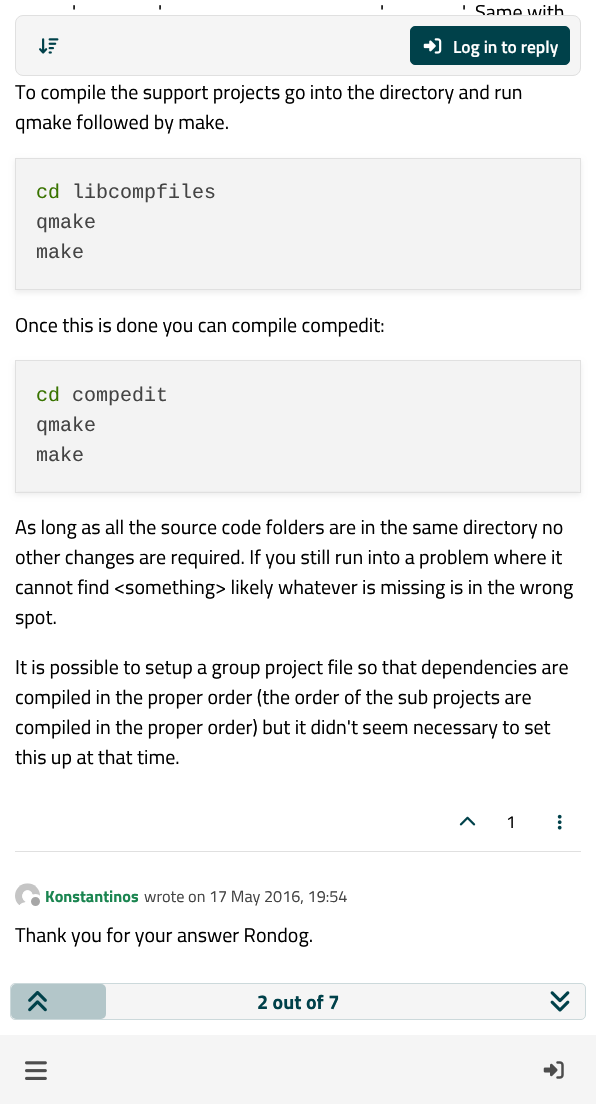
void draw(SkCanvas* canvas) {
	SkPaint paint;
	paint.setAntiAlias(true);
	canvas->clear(0xffffffff);
	SkFont f1(fontMgr->matchFamilyStyle("Titillium Web", SkFontStyle::Normal()), 20);
	f1.setSubpixel(true);
	paint.setColor(0xff000000);
	canvas->drawString("'", 72, 19, f1, paint);
	canvas->drawString("'", 158, 19, f1, paint);
	canvas->drawString("'", 380, 19, f1, paint);
	canvas->drawString("'", 462, 19, f1, paint);
	canvas->drawString("Same with", 475, 19, f1, paint);
	canvas->drawString("To compile the support projects go into the directory and run", 15, 99, f1, paint);
	canvas->drawString("qmake followed by make.", 15, 129, f1, paint);
	paint.setColor(0x12000000);
	paint.setMaskFilter(SkMaskFilter::MakeBlur(kNormal_SkBlurStyle, 2.5));
	canvas->drawRect(SkRect::MakeXYWH(15, 160, 566, 133), paint);
	paint.setMaskFilter(nullptr);
	paint.setStroke(true);
	paint.setStrokeWidth(1);
	paint.setColor(0xffe0e0e0);
	canvas->drawRect(SkRect::MakeXYWH(15.5, 158.5, 565, 131), paint);
	paint.setStroke(false);
	paint.setColor(0xfff3f3f3);
	canvas->drawRect(SkRect::MakeXYWH(16, 159, 564, 130), paint);
	SkFont f2(fontMgr->matchFamilyStyle("Liberation Mono", SkFontStyle::Normal()), 20);
	f2.setSubpixel(true);
	paint.setColor(0xff397300);
	canvas->drawString("cd", 36, 198, f2, paint);
	paint.setColor(0xff444444);
	canvas->drawString("libcompfiles", 72, 198, f2, paint);
	canvas->drawString("qmake", 36, 228, f2, paint);
	canvas->drawString("make", 36, 258, f2, paint);
	paint.setColor(0xff000000);
	canvas->drawString("Once this is done you can compile compedit:", 15, 332, f1, paint);
	paint.setColor(0x12000000);
	paint.setMaskFilter(SkMaskFilter::MakeBlur(kNormal_SkBlurStyle, 2.5));
	canvas->drawRect(SkRect::MakeXYWH(15, 363, 566, 132), paint);
	paint.setMaskFilter(nullptr);
	paint.setStroke(true);
	paint.setColor(0xffe0e0e0);
	canvas->drawRect(SkRect::MakeXYWH(15.5, 360.5, 565, 132), paint);
	paint.setStroke(false);
	paint.setColor(0xfff3f3f3);
	canvas->drawRect(SkRect::MakeXYWH(16, 361, 564, 130), paint);
	paint.setColor(0xff397300);
	canvas->drawString("cd", 36, 401, f2, paint);
	paint.setColor(0xff444444);
	canvas->drawString("compedit", 72, 401, f2, paint);
	canvas->drawString("qmake", 36, 431, f2, paint);
	canvas->drawString("make", 36, 461, f2, paint);
	paint.setColor(0xff000000);
	canvas->drawString("As long as all the source code folders are in the same directory no", 15, 534, f1, paint);
	canvas->drawString("other changes are required. If you still run into a problem where it", 15, 564, f1, paint);
	canvas->drawString("cannot find <something> likely whatever is missing is in the wrong", 15, 594, f1, paint);
	canvas->drawString("spot.", 15, 624, f1, paint);
	canvas->drawString("It is possible to setup a group project file so that dependencies are", 15, 674, f1, paint);
	canvas->drawString("compiled in the proper order (the order of the sub projects are", 15, 704, f1, paint);
	canvas->drawString("compiled in the proper order) but it didn't seem necessary to set", 15, 734, f1, paint);
	canvas->drawString("this up at that time.", 15, 764, f1, paint);
	paint.setColor(0xffe0e0e0);
	canvas->drawRect(SkRect::MakeXYWH(15, 851, 566, 1), paint);
	canvas->drawImageRect(SkImages::DeferredFromEncodedData(SkData::MakeFromFileName("img1.png")), SkRect::MakeXYWH(459, 816, 17, 10), SkSamplingOptions());
	SkFont f3(fontMgr->matchFamilyStyle("Titillium Web", SkFontStyle::Normal()), 17.5);
	f3.setSubpixel(true);
	paint.setColor(0xff000000);
	canvas->drawString("1", 506, 828, f3, paint);
	canvas->drawImageRect(SkImages::DeferredFromEncodedData(SkData::MakeFromFileName("img2.png")), SkRect::MakeXYWH(557, 814, 5, 16), SkSamplingOptions());
	canvas->drawImageRect(SkImages::DeferredFromEncodedData(SkData::MakeFromFileName("img3.png")), SkRect::MakeXYWH(15, 883, 25, 22), SkSamplingOptions());
	paint.setColor(0xffa6a6a6);
	canvas->drawCircle(35.5, 901.5, 6, paint);
	paint.setStroke(true);
	paint.setStrokeWidth(3);
	paint.setColor(0xffffffff);
	canvas->drawCircle(35.5, 901.5, 6, paint);
	SkFont f4(fontMgr->matchFamilyStyle("Titillium Web", SkFontStyle::Bold()), 16.25);
	f4.setSubpixel(true);
	paint.setStroke(false);
	paint.setColor(0xff1a8550);
	canvas->drawString("Konstantinos", 45, 902, f4, paint);
	SkFont f5(fontMgr->matchFamilyStyle("Titillium Web", SkFontStyle::Normal()), 16.25);
	f5.setSubpixel(true);
	paint.setColor(0xff444444);
	canvas->drawString("wrote on 17 May 2016, 19:54", 144, 902, f5, paint);
	paint.setColor(0xff000000);
	canvas->drawString("Thank you for your answer Rondog.", 15, 942, f1, paint);
	paint.setColor(0xfff5f5f5);
	canvas->drawRoundRect(SkRect::MakeXYWH(15.5, 15.5, 565, 60), 7.5, 7.5, paint);
	paint.setStroke(true);
	paint.setStrokeWidth(1);
	paint.setColor(0xffe0e0e0);
	canvas->drawRoundRect(SkRect::MakeXYWH(15.5, 15.5, 565, 60), 7.5, 7.5, paint);
	canvas->drawImageRect(SkImages::DeferredFromEncodedData(SkData::MakeFromFileName("img4.png")), SkRect::MakeXYWH(39, 38, 20, 16), SkSamplingOptions());
	paint.setStroke(false);
	paint.setColor(0xff00414a);
	canvas->drawRoundRect(SkRect::MakeXYWH(410.5, 26.5, 159, 38), 4.5, 4.5, paint);
	paint.setStroke(true);
	canvas->drawRoundRect(SkRect::MakeXYWH(410.5, 26.5, 159, 38), 4.5, 4.5, paint);
	canvas->drawImageRect(SkImages::DeferredFromEncodedData(SkData::MakeFromFileName("img5.png")), SkRect::MakeXYWH(423, 38, 19, 16), SkSamplingOptions());
	SkFont f6(fontMgr->matchFamilyStyle("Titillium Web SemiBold", SkFontStyle(600, SkFontStyle::kNormal_Width, SkFontStyle::kUpright_Slant)), 17.5);
	f6.setSubpixel(true);
	paint.setStroke(false);
	paint.setColor(0xffffffff);
	canvas->drawString("Log in to reply", 453, 53, f6, paint);
	paint.setColor(0xfff5f5f5);
	canvas->drawRoundRect(SkRect::MakeXYWH(10.5, 983.5, 575, 36), 4.5, 4.5, paint);
	paint.setStroke(true);
	paint.setColor(0xffccd9db);
	canvas->drawRoundRect(SkRect::MakeXYWH(10.5, 983.5, 575, 36), 4.5, 4.5, paint);
	paint.setStroke(false);
	paint.setColor(0xffb3c6c9);
	canvas->drawRoundRect(SkRect::MakeXYWH(11, 984, 95, 35), 5, 5, paint);
	canvas->drawImageRect(SkImages::DeferredFromEncodedData(SkData::MakeFromFileName("img6.png")), SkRect::MakeXYWH(28, 991, 19, 21), SkSamplingOptions());
	SkFont f7(fontMgr->matchFamilyStyle("Titillium Web", SkFontStyle::Bold()), 20);
	f7.setSubpixel(true);
	paint.setColor(0xff00414a);
	canvas->drawString("2 out of 7", 257, 1009, f7, paint);
	canvas->drawImageRect(SkImages::DeferredFromEncodedData(SkData::MakeFromFileName("img7.png")), SkRect::MakeXYWH(550, 991, 20, 21), SkSamplingOptions());
	paint.setColor(0xfff5f5f5);
	canvas->drawRect(SkRect::MakeXYWH(0, 1035, 596, 69), paint);
	canvas->drawImageRect(SkImages::DeferredFromEncodedData(SkData::MakeFromFileName("img8.png")), SkRect::MakeXYWH(25, 1061, 22, 19), SkSamplingOptions());
	canvas->drawImageRect(SkImages::DeferredFromEncodedData(SkData::MakeFromFileName("img9.png")), SkRect::MakeXYWH(543, 1061, 21, 18), SkSamplingOptions());
}
